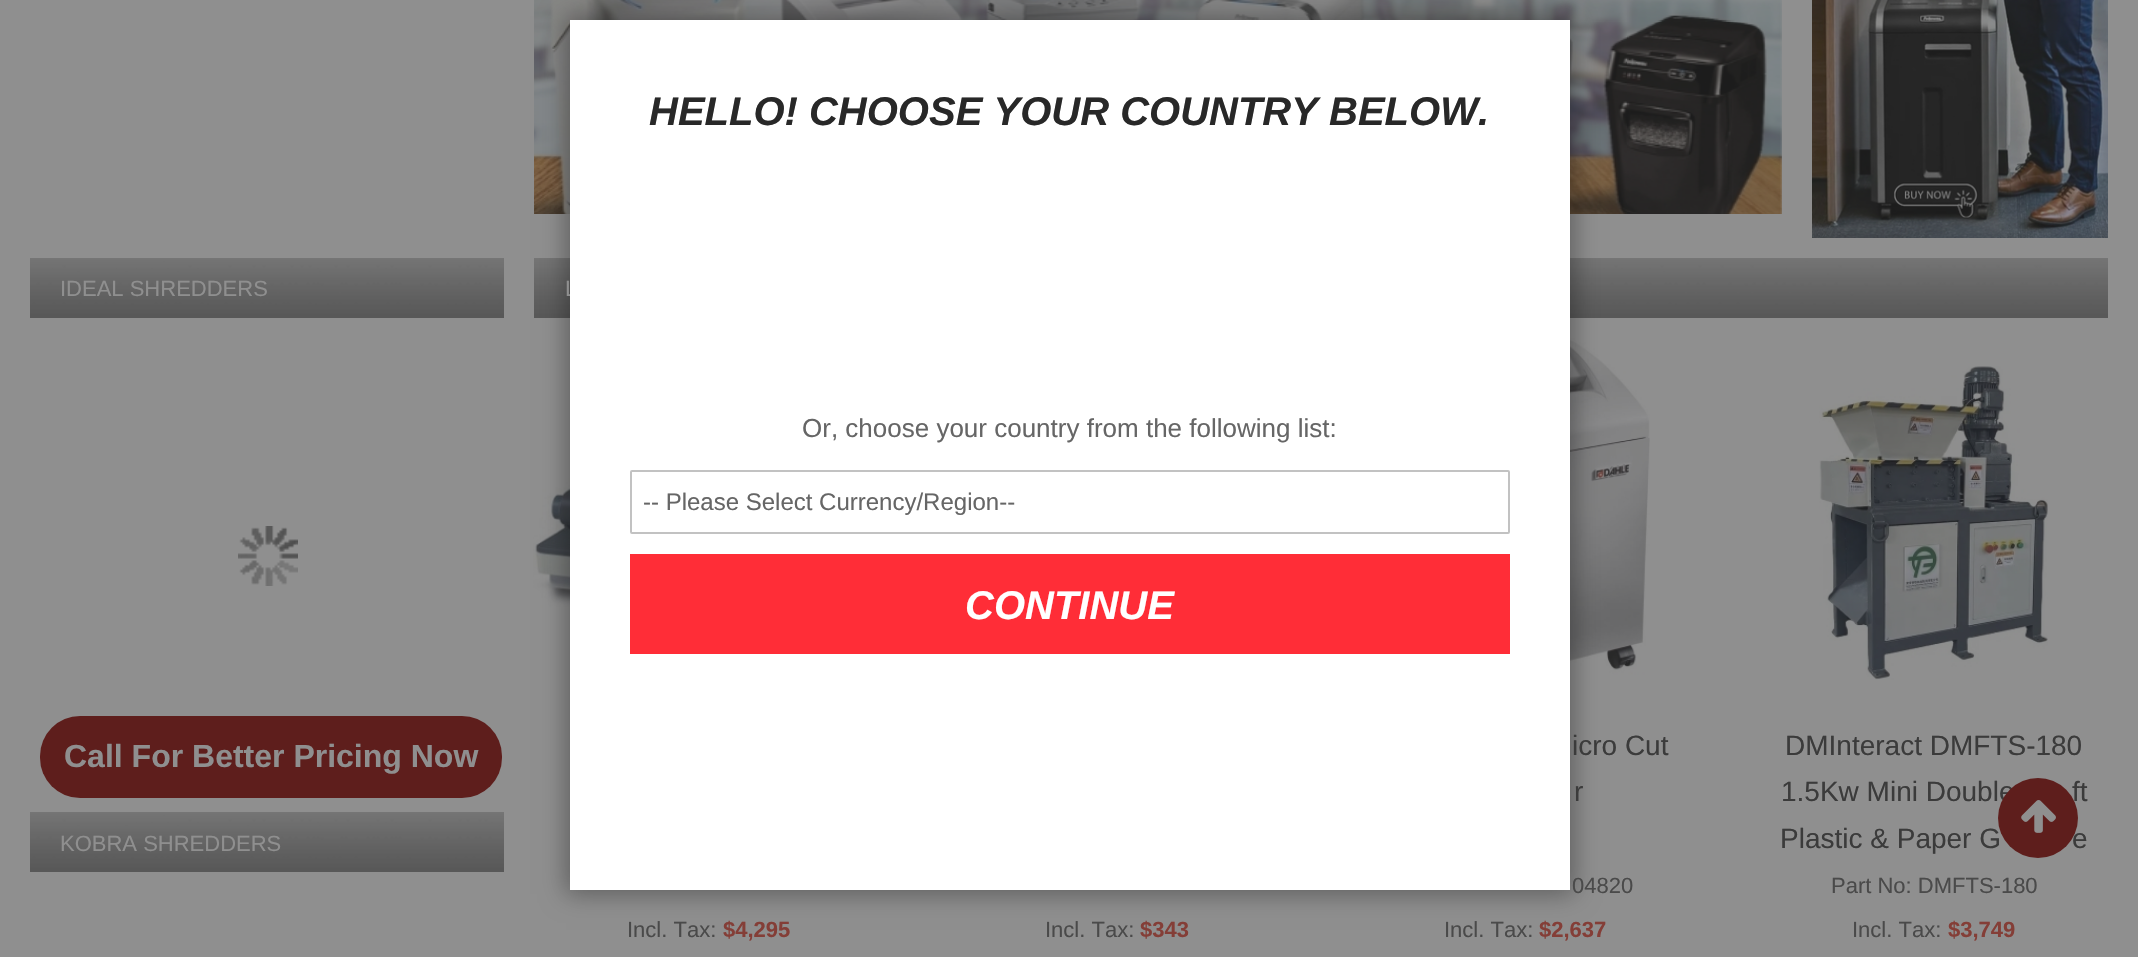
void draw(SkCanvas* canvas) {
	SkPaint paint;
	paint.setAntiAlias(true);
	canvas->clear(0xff8f8f8f);
	canvas->drawImageRect(SkImages::DeferredFromEncodedData(SkData::MakeFromFileName("img1.png")), SkRect::MakeXYWH(534, 0, 1248, 214), SkSamplingOptions());
	canvas->drawImageRect(SkImages::DeferredFromEncodedData(SkData::MakeFromFileName("img5.png")), SkRect::MakeXYWH(534, 258, 1574, 60), SkSamplingOptions());
	canvas->drawImageRect(SkImages::DeferredFromEncodedData(SkData::MakeFromFileName("img6.png")), SkRect::MakeXYWH(533, 423, 37, 212), SkSamplingOptions());
	canvas->drawImageRect(SkImages::DeferredFromEncodedData(SkData::MakeFromFileName("img7.png")), SkRect::MakeXYWH(1570, 338, 80, 368), SkSamplingOptions());
	paint.setColor(0x59000000);
	paint.setMaskFilter(SkMaskFilter::MakeBlur(kNormal_SkBlurStyle, 12));
	canvas->drawRect(SkRect::MakeXYWH(566, 16, 1008, 878), paint);
	paint.setMaskFilter(nullptr);
	SkFont f1(fontMgr->matchFamilyStyle("Liberation Sans", SkFontStyle::Normal()), 22);
	f1.setSubpixel(true);
	paint.setColor(0xff8f8f8f);
	canvas->drawString("L", 565, 296, f1, paint);
	paint.setColor(0xffffffff);
	canvas->drawRect(SkRect::MakeXYWH(570, 20, 1000, 870), paint);
	SkFont f2(fontMgr->matchFamilyStyle("Liberation Sans", SkFontStyle::BoldItalic()), 40);
	f2.setSubpixel(true);
	paint.setColor(0xff282828);
	canvas->drawString("HELLO! CHOOSE YOUR COUNTRY BELOW.", 649, 125, f2, paint);
	SkFont f3(fontMgr->matchFamilyStyle("Liberation Sans", SkFontStyle::Normal()), 26);
	f3.setSubpixel(true);
	paint.setColor(0xff666666);
	canvas->drawString("Or, choose your country from the following list:", 802, 437, f3, paint);
	paint.setStroke(true);
	paint.setStrokeWidth(2);
	paint.setColor(0xffc2c2c2);
	canvas->drawRoundRect(SkRect::MakeXYWH(631, 471, 878, 62), 1, 1, paint);
	SkFont f4(fontMgr->matchFamilyStyle("Liberation Sans", SkFontStyle::Normal()), 24);
	f4.setSubpixel(true);
	paint.setStroke(false);
	paint.setColor(0xff666666);
	canvas->drawString("-- Please Select Currency/Region--", 643, 510, f4, paint);
	paint.setColor(0xffff2d37);
	canvas->drawRect(SkRect::MakeXYWH(630, 554, 880, 100), paint);
	paint.setColor(0xffffffff);
	canvas->drawString("CONTINUE", 965, 619, f2, paint);
	canvas->drawImageRect(SkImages::DeferredFromEncodedData(SkData::MakeFromFileName("img2.png")), SkRect::MakeXYWH(1812, 0, 296, 238), SkSamplingOptions());
	canvas->drawImageRect(SkImages::DeferredFromEncodedData(SkData::MakeFromFileName("img3.png")), SkRect::MakeXYWH(30, 258, 474, 60), SkSamplingOptions());
	paint.setColor(0xff8f8f8f);
	canvas->drawString("IDEAL SHREDDERS", 60, 296, f1, paint);
	canvas->drawImageRect(SkImages::DeferredFromEncodedData(SkData::MakeFromFileName("img4.png")), SkRect::MakeXYWH(238, 526, 60, 60), SkSamplingOptions());
	canvas->drawImageRect(SkImages::DeferredFromEncodedData(SkData::MakeFromFileName("img3.png")), SkRect::MakeXYWH(30, 812, 474, 60), SkSamplingOptions());
	canvas->drawString("KOBRA SHREDDERS", 60, 851, f1, paint);
	paint.setColor(0xff4a4a4a);
	canvas->drawString("Incl. Tax:", 627, 937, f1, paint);
	SkFont f5(fontMgr->matchFamilyStyle("Liberation Sans", SkFontStyle::Bold()), 22);
	f5.setSubpixel(true);
	paint.setColor(0xff843e37);
	canvas->drawString("$4,295", 723, 937, f5, paint);
	paint.setColor(0xff4a4a4a);
	canvas->drawString("Incl. Tax:", 1045, 937, f1, paint);
	paint.setColor(0xff843e37);
	canvas->drawString("$343", 1140, 937, f5, paint);
	SkFont f6(fontMgr->matchFamilyStyle("Liberation Sans", SkFontStyle::Normal()), 28);
	f6.setSubpixel(true);
	paint.setColor(0xff3b3b3b);
	canvas->drawString("icro Cut", 1572, 755, f6, paint);
	canvas->drawString("r", 1574, 801, f6, paint);
	paint.setColor(0xff4a4a4a);
	canvas->drawString("04820", 1572, 893, f1, paint);
	canvas->drawString("Incl. Tax:", 1444, 937, f1, paint);
	paint.setColor(0xff843e37);
	canvas->drawString("$2,637", 1539, 937, f5, paint);
	canvas->drawImageRect(SkImages::DeferredFromEncodedData(SkData::MakeFromFileName("img8.png")), SkRect::MakeXYWH(1819, 366, 229, 314), SkSamplingOptions());
	paint.setColor(0xff3b3b3b);
	canvas->drawString("DMInteract DMFTS-180", 1785, 755, f6, paint);
	canvas->drawString("1.5Kw Mini Double", 1781, 801, f6, paint);
	canvas->drawString("ft", 2072, 801, f6, paint);
	canvas->drawString("Plastic & Paper G", 1780, 848, f6, paint);
	canvas->drawString("e", 2072, 848, f6, paint);
	paint.setColor(0xff4a4a4a);
	canvas->drawString("Part No: DMFTS-180", 1831, 893, f1, paint);
	canvas->drawString("Incl. Tax:", 1852, 937, f1, paint);
	paint.setColor(0xff843e37);
	canvas->drawString("$3,749", 1948, 937, f5, paint);
	paint.setColor(0xff5e1e1c);
	canvas->drawRoundRect(SkRect::MakeXYWH(40, 716, 462, 82), 40, 40, paint);
	SkFont f7(fontMgr->matchFamilyStyle("Liberation Sans", SkFontStyle::Bold()), 32);
	f7.setSubpixel(true);
	paint.setColor(0xff8f8f8f);
	canvas->drawString("Call For Better Pricing Now", 64, 767, f7, paint);
	paint.setColor(0xff5e1e1c);
	canvas->drawCircle(2038, 818, 40, paint);
	canvas->drawImageRect(SkImages::DeferredFromEncodedData(SkData::MakeFromFileName("img9.png")), SkRect::MakeXYWH(2021, 800, 35, 33), SkSamplingOptions());
}
